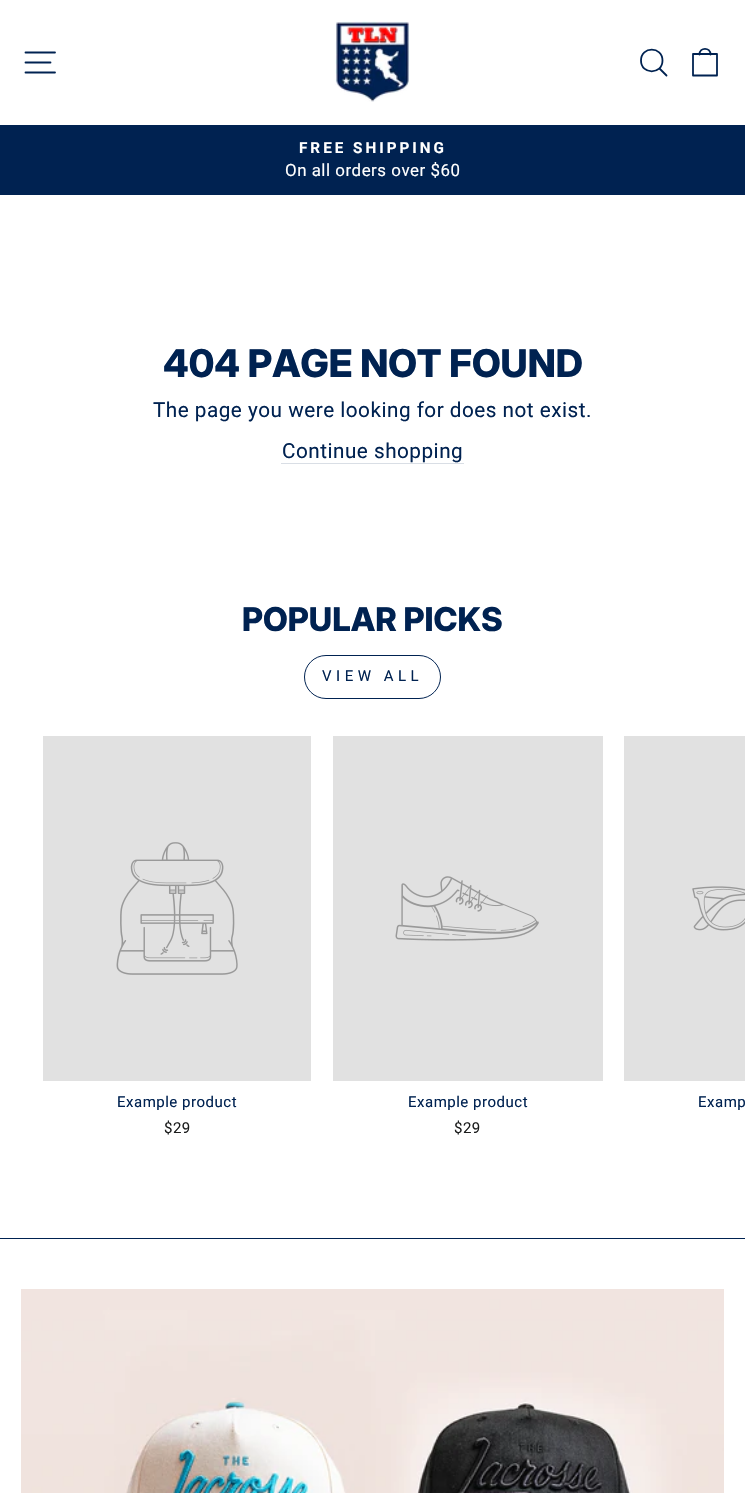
void draw(SkCanvas* canvas) {
	SkPaint paint;
	paint.setAntiAlias(true);
	auto spacedText = [&](const char* s, float x, float y, const SkFont& font, const SkPaint& ink, float letter, float word) {
		std::vector<SkGlyphID> glyphs(font.countText(s, strlen(s), SkTextEncoding::kUTF8));
		std::vector<float> xs(glyphs.size());
		font.textToGlyphs(s, strlen(s), SkTextEncoding::kUTF8, glyphs);
		font.getXPos(glyphs, xs, x);
		float extra = 0;
		for (size_t i = 0; i < glyphs.size(); i++) {
			xs[i] += extra;
			extra += letter + word * (glyphs[i] == font.unicharToGlyph(' '));
		}
		canvas->drawTextBlob(SkTextBlob::MakeFromPosHGlyphs(glyphs, xs, y, font), 0, 0, ink);
	};
	auto svgPath = [&](const char* data, bool evenOdd = false) {
		SkPath result = *SkParsePath::FromSVGString(data);
		if (evenOdd) result.setFillType(SkPathFillType::kEvenOdd);
		return result;
	};
	canvas->clear(0xffffffff);
	paint.setStroke(true);
	paint.setStrokeWidth(1.8);
	paint.setStrokeCap(SkPaint::kRound_Cap);
	paint.setStrokeJoin(SkPaint::kRound_Join);
	paint.setColor(0xff002251);
	canvas->drawPath(svgPath("M25.5 52.5H55M25.5 62.5H50.5M25.5 72.5H55"), paint);
	canvas->drawImageRect(SkImages::DeferredFromEncodedData(SkData::MakeFromFileName("img1.png")), SkRect::MakeXYWH(335, 21, 75, 81), SkSamplingOptions());
	canvas->drawPath(svgPath("M662.5 60.5C662.5 75 641 75 641 60.5C641 46 662.5 46 662.5 60.5ZM666.5 75.5L659.5 68.5"), paint);
	canvas->drawPath(svgPath("M693 54H717V75.5H693ZM699.5 54.5C699.5 47 710.5 47 710.5 54.5"), paint);
	paint.setStroke(false);
	canvas->drawRect(SkRect::MakeXYWH(0, 125, 745, 70), paint);
	SkFont f1(fontMgr->matchFamilyStyle("Roboto", SkFontStyle::Bold()), 15.25);
	f1.setSubpixel(true);
	paint.setColor(0xffffffff);
	spacedText("FREE SHIPPING", 299, 153, f1, paint, 3, 0);
	SkFont f2(fontMgr->matchFamilyStyle("Roboto", SkFontStyle::Normal()), 16.9);
	f2.setSubpixel(true);
	spacedText("On all orders over $60", 285, 176, f2, paint, 0.5, 0);
	SkFont f3(fontMgr->matchFamilyStyle("Inter", SkFontStyle(800, SkFontStyle::kNormal_Width, SkFontStyle::kUpright_Slant)), 38.25);
	f3.setSubpixel(true);
	paint.setColor(0xff002251);
	canvas->drawString("404 PAGE NOT FOUND", 163, 377, f3, paint);
	SkFont f4(fontMgr->matchFamilyStyle("Roboto", SkFontStyle::Normal()), 20.7);
	f4.setSubpixel(true);
	spacedText("The page you were looking for does not exist.", 153, 417, f4, paint, 0.5, 0);
	spacedText("Continue shopping", 282, 458, f4, paint, 0.5, 0);
	paint.setColor(0xffd9dee5);
	canvas->drawRect(SkRect::MakeXYWH(281, 463, 183, 1), paint);
	SkFont f5(fontMgr->matchFamilyStyle("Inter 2", SkFontStyle(800, SkFontStyle::kNormal_Width, SkFontStyle::kUpright_Slant)), 32.75);
	f5.setSubpixel(true);
	paint.setColor(0xff002251);
	canvas->drawString("POPULAR PICKS", 242, 631, f5, paint);
	paint.setStroke(true);
	paint.setStrokeWidth(1);
	paint.setStrokeCap(SkPaint::kButt_Cap);
	paint.setStrokeJoin(SkPaint::kMiter_Join);
	canvas->drawRoundRect(SkRect::MakeXYWH(304.5, 655.5, 136, 43), 21.5, 21.5, paint);
	SkFont f6(fontMgr->matchFamilyStyle("Roboto", SkFontStyle::Normal()), 15);
	f6.setSubpixel(true);
	paint.setStroke(false);
	spacedText("VIEW ALL", 322, 681, f6, paint, 4.5, 0);
	paint.setColor(0xffe1e1e1);
	canvas->drawRect(SkRect::MakeXYWH(43, 736, 268, 345), paint);
	canvas->drawImageRect(SkImages::DeferredFromEncodedData(SkData::MakeFromFileName("img2.png")), SkRect::MakeXYWH(116, 842, 122, 133), SkSamplingOptions());
	paint.setColor(0xff002251);
	spacedText("Example product", 117, 1107, f6, paint, 0.5, 0);
	paint.setColor(0xff1c1d1d);
	spacedText("$29", 164, 1133, f6, paint, 0.5, 0);
	paint.setColor(0xffe1e1e1);
	canvas->drawRect(SkRect::MakeXYWH(333, 736, 270, 345), paint);
	canvas->drawImageRect(SkImages::DeferredFromEncodedData(SkData::MakeFromFileName("img3.png")), SkRect::MakeXYWH(395, 876, 144, 65), SkSamplingOptions());
	paint.setColor(0xff002251);
	spacedText("Example product", 408, 1107, f6, paint, 0.5, 0);
	paint.setColor(0xff1c1d1d);
	spacedText("$29", 454, 1133, f6, paint, 0.5, 0);
	paint.setColor(0xffe1e1e1);
	canvas->drawRect(SkRect::MakeXYWH(624, 736, 121, 345), paint);
	canvas->drawImageRect(SkImages::DeferredFromEncodedData(SkData::MakeFromFileName("img4.png")), SkRect::MakeXYWH(692, 886, 53, 45), SkSamplingOptions());
	paint.setColor(0xff002251);
	spacedText("Examp", 698, 1107, f6, paint, 0.5, 0);
	canvas->drawRect(SkRect::MakeXYWH(0, 1238, 745, 1), paint);
	canvas->drawImageRect(SkImages::DeferredFromEncodedData(SkData::MakeFromFileName("img5.png")), SkRect::MakeXYWH(21, 1289, 703, 204), SkSamplingOptions());
}
